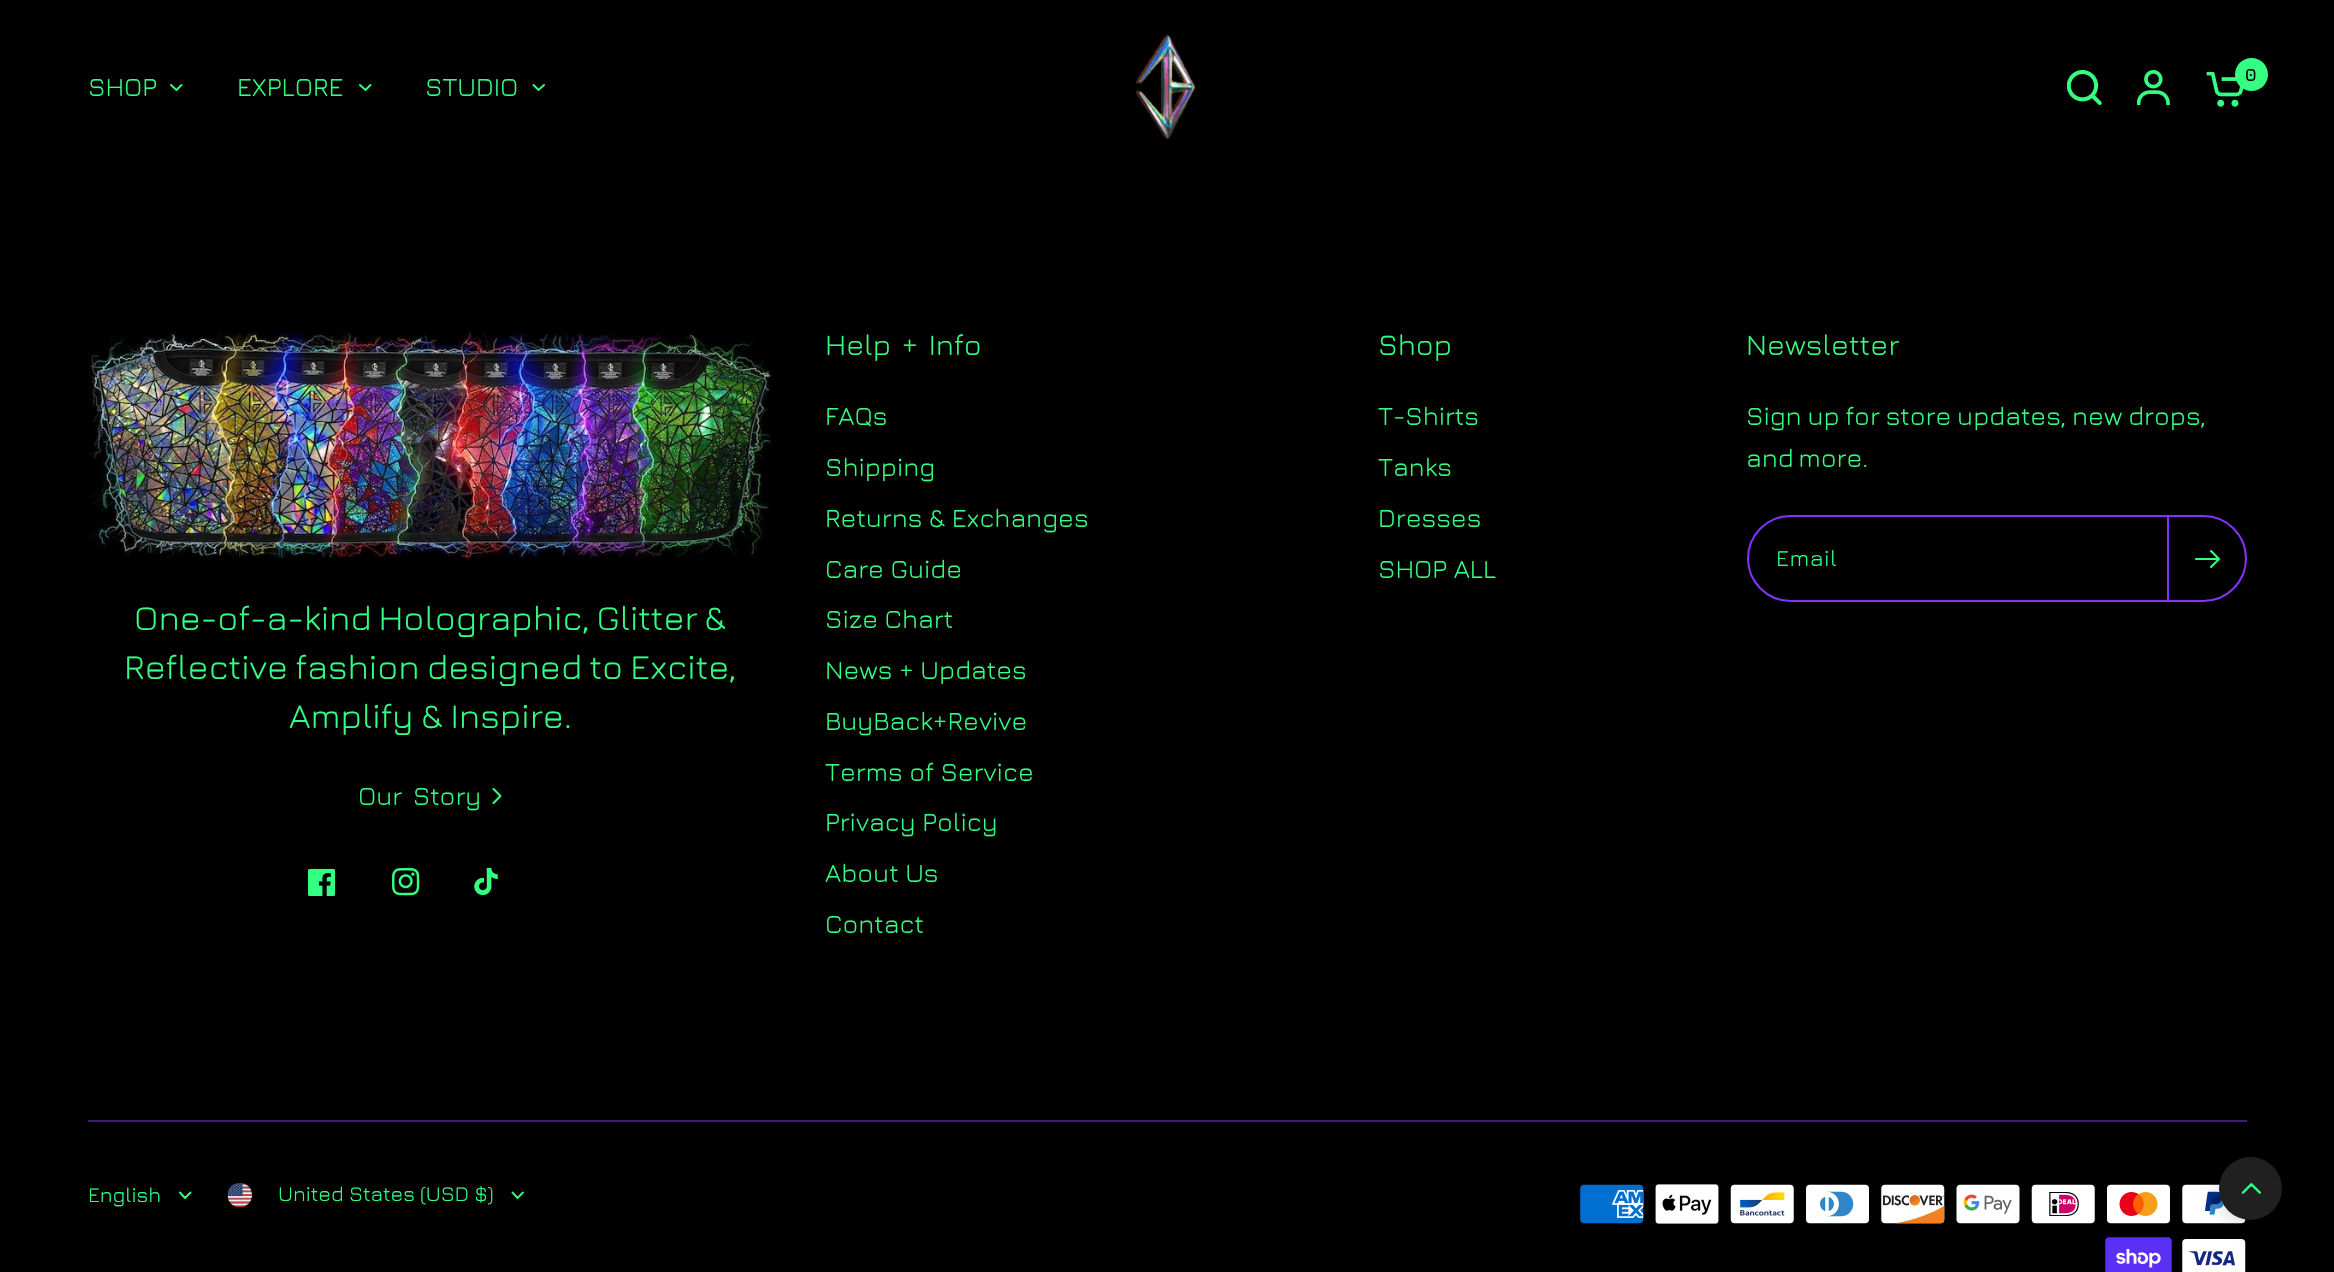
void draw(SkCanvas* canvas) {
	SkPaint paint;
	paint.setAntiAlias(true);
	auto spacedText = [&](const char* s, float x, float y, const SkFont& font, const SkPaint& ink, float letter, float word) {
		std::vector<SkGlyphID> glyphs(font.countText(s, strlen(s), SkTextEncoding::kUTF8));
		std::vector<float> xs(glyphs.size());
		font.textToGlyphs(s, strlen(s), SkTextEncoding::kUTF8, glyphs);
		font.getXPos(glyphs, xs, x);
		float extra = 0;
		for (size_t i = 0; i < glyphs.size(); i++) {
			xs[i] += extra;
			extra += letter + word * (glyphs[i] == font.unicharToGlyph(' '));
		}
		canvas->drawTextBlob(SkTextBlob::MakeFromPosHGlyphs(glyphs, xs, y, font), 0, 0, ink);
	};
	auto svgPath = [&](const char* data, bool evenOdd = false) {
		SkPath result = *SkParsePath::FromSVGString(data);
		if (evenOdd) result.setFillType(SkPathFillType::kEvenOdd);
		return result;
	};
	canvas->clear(0xff000000);
	canvas->drawImageRect(SkImages::DeferredFromEncodedData(SkData::MakeFromFileName("img1.png")), SkRect::MakeXYWH(1136, 34, 60, 105), SkSamplingOptions());
	canvas->drawImageRect(SkImages::DeferredFromEncodedData(SkData::MakeFromFileName("img2.png")), SkRect::MakeXYWH(2067, 70, 35, 35), SkSamplingOptions());
	canvas->drawImageRect(SkImages::DeferredFromEncodedData(SkData::MakeFromFileName("img3.png")), SkRect::MakeXYWH(2137, 70, 33, 35), SkSamplingOptions());
	canvas->drawImageRect(SkImages::DeferredFromEncodedData(SkData::MakeFromFileName("img4.png")), SkRect::MakeXYWH(2206, 72, 38, 35), SkSamplingOptions());
	paint.setColor(0xff34ff82);
	canvas->drawCircle(2251.5, 74.5, 16.5, paint);
	SkFont f1(fontMgr->matchFamilyStyle("Jura", SkFontStyle::Bold()), 18);
	f1.setSubpixel(true);
	paint.setColor(0xff000000);
	canvas->drawString("0", 2245, 81, f1, paint);
	SkFont f2(fontMgr->matchFamilyStyle("Jura", SkFontStyle::Normal()), 26.25);
	f2.setSubpixel(true);
	paint.setColor(0xff34ff82);
	canvas->drawString("SHOP", 88, 96, f2, paint);
	paint.setStroke(true);
	paint.setStrokeWidth(1.9);
	paint.setStrokeCap(SkPaint::kRound_Cap);
	paint.setStrokeJoin(SkPaint::kRound_Join);
	canvas->drawPath(svgPath("M181.5 85L176.5 90L171 85"), paint);
	paint.setStroke(false);
	canvas->drawString("EXPLORE", 237, 96, f2, paint);
	paint.setStroke(true);
	canvas->drawPath(svgPath("M370.5 85L365.5 90L360 85"), paint);
	paint.setStroke(false);
	canvas->drawString("STUDIO", 425, 96, f2, paint);
	paint.setStroke(true);
	canvas->drawPath(svgPath("M544 85L538.5 90L533.5 85"), paint);
	SkFont f3(fontMgr->matchFamilyStyle("Jura", SkFontStyle::Normal()), 29.75);
	f3.setSubpixel(true);
	paint.setStroke(false);
	spacedText("Help + Info", 825, 355, f3, paint, 0, 3);
	canvas->drawString("FAQs", 825, 425, f2, paint);
	canvas->drawString("Shipping", 825, 476, f2, paint);
	canvas->drawString("Returns & Exchanges", 825, 527, f2, paint);
	canvas->drawString("Care Guide", 825, 578, f2, paint);
	canvas->drawString("Size Chart", 825, 628, f2, paint);
	canvas->drawString("News + Updates", 825, 679, f2, paint);
	canvas->drawString("BuyBack+Revive", 825, 730, f2, paint);
	canvas->drawString("Terms of Service", 825, 781, f2, paint);
	canvas->drawString("Privacy Policy", 825, 831, f2, paint);
	canvas->drawString("About Us", 825, 882, f2, paint);
	canvas->drawString("Contact", 825, 933, f2, paint);
	canvas->drawString("Shop", 1378, 355, f3, paint);
	canvas->drawString("T-Shirts", 1378, 425, f2, paint);
	canvas->drawString("Tanks", 1378, 476, f2, paint);
	canvas->drawString("Dresses", 1378, 527, f2, paint);
	canvas->drawString("SHOP ALL", 1378, 578, f2, paint);
	canvas->drawString("Newsletter", 1746, 355, f3, paint);
	spacedText("Sign up for store updates, new drops,", 1746, 425, f2, paint, 0, -0.75);
	spacedText("and more.", 1746, 467, f2, paint, 0, -2);
	paint.setStroke(true);
	paint.setStrokeWidth(2);
	paint.setStrokeCap(SkPaint::kButt_Cap);
	paint.setStrokeJoin(SkPaint::kMiter_Join);
	paint.setColor(0xff8234ff);
	canvas->drawRoundRect(SkRect::MakeXYWH(1748, 516, 498, 85), 42.5, 42.5, paint);
	SkFont f4(fontMgr->matchFamilyStyle("Jura", SkFontStyle::Normal()), 23);
	f4.setSubpixel(true);
	paint.setStroke(false);
	paint.setColor(0xff34ff82);
	spacedText("Email", 1776, 566, f4, paint, 0.5, 0);
	paint.setColor(0xff8234ff);
	canvas->drawRect(SkRect::MakeXYWH(2167, 516, 2, 84), paint);
	paint.setStroke(true);
	paint.setStrokeWidth(2.1);
	paint.setStrokeCap(SkPaint::kRound_Cap);
	paint.setStrokeJoin(SkPaint::kRound_Join);
	paint.setColor(0xff34ff82);
	canvas->drawPath(svgPath("M2196 559H2217M2211 551L2219 559L2211 567"), paint);
	canvas->drawImageRect(SkImages::DeferredFromEncodedData(SkData::MakeFromFileName("img5.png")), SkRect::MakeXYWH(87, 330, 685, 228), SkSamplingOptions());
	SkFont f5(fontMgr->matchFamilyStyle("Jura", SkFontStyle::Normal()), 35);
	f5.setSubpixel(true);
	paint.setStroke(false);
	spacedText("One-of-a-kind Holographic, Glitter &", 134, 630, f5, paint, 0, -2);
	spacedText("Reflective fashion designed to Excite,", 124, 679, f5, paint, 0, -1.5);
	spacedText("Amplify & Inspire.", 289, 728, f5, paint, 0, -1);
	spacedText("Our Story", 358, 805, f2, paint, 0, 4);
	paint.setStroke(true);
	canvas->drawPath(svgPath("M493.5 789L500.5 796L493.5 803"), paint);
	canvas->drawImageRect(SkImages::DeferredFromEncodedData(SkData::MakeFromFileName("img6.png")), SkRect::MakeXYWH(308, 868, 28, 28), SkSamplingOptions());
	canvas->drawImageRect(SkImages::DeferredFromEncodedData(SkData::MakeFromFileName("img7.png")), SkRect::MakeXYWH(392, 868, 28, 28), SkSamplingOptions());
	canvas->drawImageRect(SkImages::DeferredFromEncodedData(SkData::MakeFromFileName("img8.png")), SkRect::MakeXYWH(474, 868, 24, 28), SkSamplingOptions());
	paint.setStroke(false);
	paint.setColor(0xff411a80);
	canvas->drawRect(SkRect::MakeXYWH(88, 1120, 2159, 2), paint);
	SkFont f6(fontMgr->matchFamilyStyle("Jura", SkFontStyle::Normal()), 21);
	f6.setSubpixel(true);
	paint.setColor(0xff34ff82);
	canvas->drawString("English", 88, 1202, f6, paint);
	paint.setStroke(true);
	paint.setStrokeWidth(1.9);
	canvas->drawPath(svgPath("M190.5 1192.5L185 1198L180 1192.5"), paint);
	canvas->drawImageRect(SkImages::DeferredFromEncodedData(SkData::MakeFromFileName("img9.png")), SkRect::MakeXYWH(227, 1182, 25, 26), SkSamplingOptions());
	paint.setStroke(false);
	canvas->drawString("United States (USD $)", 278, 1201, f6, paint);
	paint.setStroke(true);
	canvas->drawPath(svgPath("M523 1192.5L517.5 1198L512.5 1192.5"), paint);
	canvas->drawImageRect(SkImages::DeferredFromEncodedData(SkData::MakeFromFileName("img10.png")), SkRect::MakeXYWH(1580, 1184, 64, 40), SkSamplingOptions());
	canvas->drawImageRect(SkImages::DeferredFromEncodedData(SkData::MakeFromFileName("img11.png")), SkRect::MakeXYWH(1655, 1184, 64, 40), SkSamplingOptions());
	canvas->drawImageRect(SkImages::DeferredFromEncodedData(SkData::MakeFromFileName("img12.png")), SkRect::MakeXYWH(1730, 1184, 64, 40), SkSamplingOptions());
	canvas->drawImageRect(SkImages::DeferredFromEncodedData(SkData::MakeFromFileName("img13.png")), SkRect::MakeXYWH(1806, 1184, 63, 40), SkSamplingOptions());
	canvas->drawImageRect(SkImages::DeferredFromEncodedData(SkData::MakeFromFileName("img14.png")), SkRect::MakeXYWH(1881, 1184, 64, 40), SkSamplingOptions());
	canvas->drawImageRect(SkImages::DeferredFromEncodedData(SkData::MakeFromFileName("img15.png")), SkRect::MakeXYWH(1956, 1184, 64, 40), SkSamplingOptions());
	canvas->drawImageRect(SkImages::DeferredFromEncodedData(SkData::MakeFromFileName("img16.png")), SkRect::MakeXYWH(2031, 1184, 64, 40), SkSamplingOptions());
	canvas->drawImageRect(SkImages::DeferredFromEncodedData(SkData::MakeFromFileName("img17.png")), SkRect::MakeXYWH(2107, 1184, 63, 40), SkSamplingOptions());
	canvas->drawImageRect(SkImages::DeferredFromEncodedData(SkData::MakeFromFileName("img18.png")), SkRect::MakeXYWH(2182, 1184, 64, 40), SkSamplingOptions());
	canvas->drawImageRect(SkImages::DeferredFromEncodedData(SkData::MakeFromFileName("img19.png")), SkRect::MakeXYWH(2105, 1237, 67, 35), SkSamplingOptions());
	canvas->drawImageRect(SkImages::DeferredFromEncodedData(SkData::MakeFromFileName("img20.png")), SkRect::MakeXYWH(2182, 1239, 64, 33), SkSamplingOptions());
	paint.setStroke(false);
	paint.setColor(0x26000000);
	paint.setMaskFilter(SkMaskFilter::MakeBlur(kNormal_SkBlurStyle, 9));
	canvas->drawRoundRect(SkRect::MakeXYWH(2219, 1160, 63, 63), 31.5, 31.5, paint);
	paint.setMaskFilter(nullptr);
	paint.setColor(0xff202020);
	canvas->drawCircle(2250.5, 1188.5, 31.5, paint);
	canvas->drawImageRect(SkImages::DeferredFromEncodedData(SkData::MakeFromFileName("img21.png")), SkRect::MakeXYWH(2241, 1183, 20, 11), SkSamplingOptions());
}
